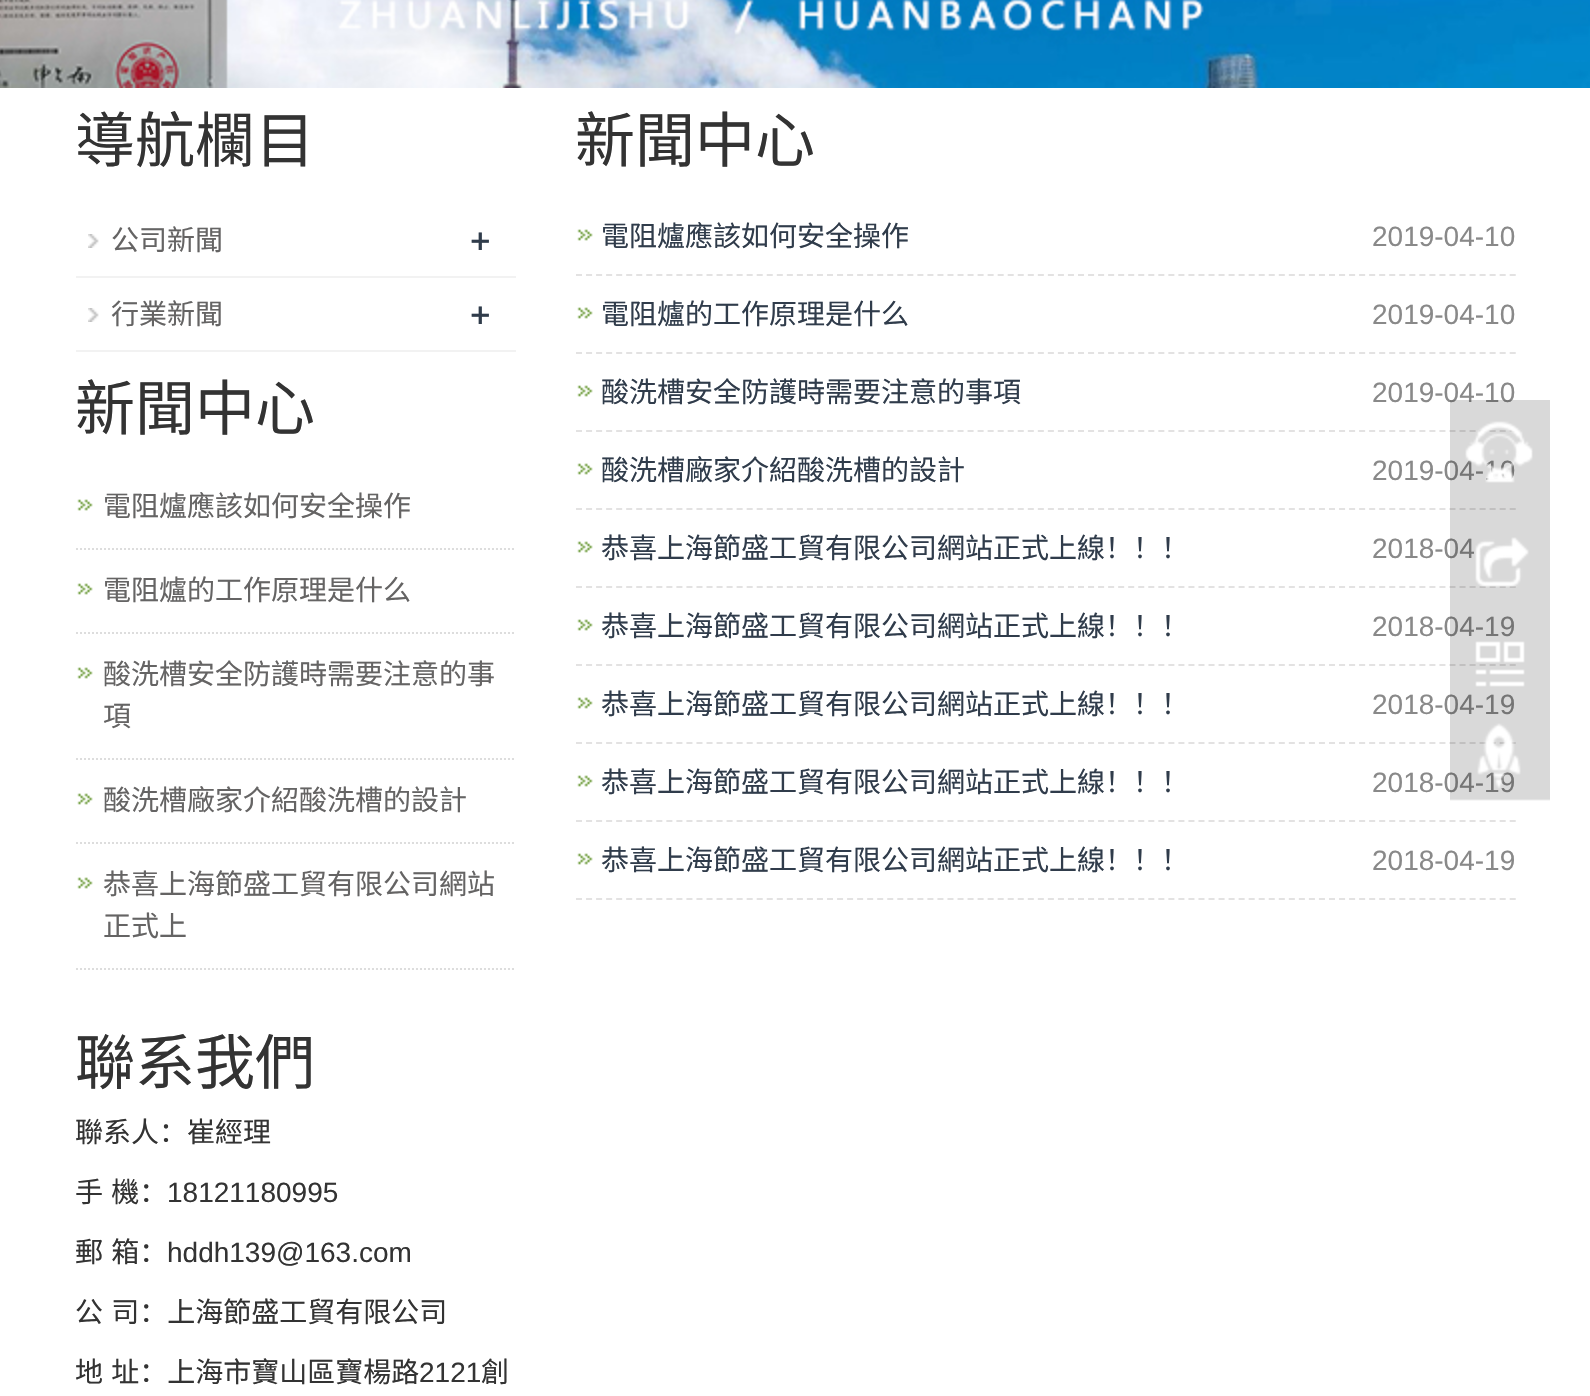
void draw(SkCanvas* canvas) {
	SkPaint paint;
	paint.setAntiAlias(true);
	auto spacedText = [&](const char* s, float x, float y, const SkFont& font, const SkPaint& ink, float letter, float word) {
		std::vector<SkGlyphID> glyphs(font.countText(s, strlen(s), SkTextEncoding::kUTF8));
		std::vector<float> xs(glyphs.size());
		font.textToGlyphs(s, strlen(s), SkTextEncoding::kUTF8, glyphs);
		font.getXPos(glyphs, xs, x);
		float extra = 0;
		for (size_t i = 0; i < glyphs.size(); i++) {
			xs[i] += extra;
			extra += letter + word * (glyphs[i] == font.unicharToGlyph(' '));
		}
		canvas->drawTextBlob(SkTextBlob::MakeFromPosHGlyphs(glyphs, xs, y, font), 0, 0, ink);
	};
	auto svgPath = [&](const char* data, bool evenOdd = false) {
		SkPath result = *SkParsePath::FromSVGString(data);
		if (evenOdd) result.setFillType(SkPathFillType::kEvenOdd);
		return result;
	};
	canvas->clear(0xffffffff);
	canvas->drawImageRect(SkImages::DeferredFromEncodedData(SkData::MakeFromFileName("img1.png")), SkRect::MakeXYWH(0, 0, 1590, 88), SkSamplingOptions());
	SkFont f1(fontMgr->matchFamilyStyle("Noto Sans CJK SC", SkFontStyle::Normal()), 60);
	f1.setSubpixel(true);
	paint.setColor(0xff333333);
	canvas->drawString("導航欄目", 75, 162, f1, paint);
	canvas->drawImageRect(SkImages::DeferredFromEncodedData(SkData::MakeFromFileName("img2.png")), SkRect::MakeXYWH(88, 234, 11, 14), SkSamplingOptions());
	paint.setColor(0xfff2f2f2);
	canvas->drawRect(SkRect::MakeXYWH(76, 276, 440, 2), paint);
	SkFont f2(fontMgr->matchFamilyStyle("Noto Sans CJK SC", SkFontStyle::Normal()), 28);
	f2.setSubpixel(true);
	paint.setColor(0xff656464);
	canvas->drawString("公司新聞", 111, 250, f2, paint);
	SkFont f3(fontMgr->matchFamilyStyle("Open Sans", SkFontStyle(600, SkFontStyle::kNormal_Width, SkFontStyle::kUpright_Slant)), 36);
	f3.setSubpixel(true);
	paint.setColor(0xff303c4b);
	canvas->drawString("+", 470, 254, f3, paint);
	canvas->drawImageRect(SkImages::DeferredFromEncodedData(SkData::MakeFromFileName("img2.png")), SkRect::MakeXYWH(88, 308, 11, 14), SkSamplingOptions());
	paint.setColor(0xfff2f2f2);
	canvas->drawRect(SkRect::MakeXYWH(76, 350, 440, 2), paint);
	paint.setColor(0xff656464);
	canvas->drawString("行業新聞", 111, 324, f2, paint);
	paint.setColor(0xff303c4b);
	canvas->drawString("+", 470, 328, f3, paint);
	paint.setColor(0xff333333);
	canvas->drawString("新聞中心", 75, 430, f1, paint);
	canvas->drawImageRect(SkImages::DeferredFromEncodedData(SkData::MakeFromFileName("img3.png")), SkRect::MakeXYWH(77, 499, 16, 12), SkSamplingOptions());
	paint.setStroke(true);
	paint.setStrokeWidth(2);
	paint.setColor(0xffdddddd);
	paint.setPathEffect(SkDashPathEffect::Make({{2, 2}}, 0));
	canvas->drawPath(svgPath("M76 549H516"), paint);
	paint.setPathEffect(nullptr);
	paint.setStroke(false);
	paint.setColor(0xff656464);
	canvas->drawString("電阻爐應該如何安全操作", 103, 516, f2, paint);
	canvas->drawImageRect(SkImages::DeferredFromEncodedData(SkData::MakeFromFileName("img3.png")), SkRect::MakeXYWH(77, 583, 16, 12), SkSamplingOptions());
	paint.setStroke(true);
	paint.setColor(0xffdddddd);
	paint.setPathEffect(SkDashPathEffect::Make({{2, 2}}, 0));
	canvas->drawPath(svgPath("M76 633H516"), paint);
	paint.setPathEffect(nullptr);
	paint.setStroke(false);
	paint.setColor(0xff656464);
	canvas->drawString("電阻爐的工作原理是什么", 103, 600, f2, paint);
	canvas->drawImageRect(SkImages::DeferredFromEncodedData(SkData::MakeFromFileName("img3.png")), SkRect::MakeXYWH(77, 667, 16, 12), SkSamplingOptions());
	paint.setStroke(true);
	paint.setColor(0xffdddddd);
	paint.setPathEffect(SkDashPathEffect::Make({{2, 2}}, 0));
	canvas->drawPath(svgPath("M76 759H516"), paint);
	paint.setPathEffect(nullptr);
	paint.setStroke(false);
	paint.setColor(0xff656464);
	canvas->drawString("酸洗槽安全防護時需要注意的事", 103, 684, f2, paint);
	canvas->drawString("項", 103, 726, f2, paint);
	canvas->drawImageRect(SkImages::DeferredFromEncodedData(SkData::MakeFromFileName("img3.png")), SkRect::MakeXYWH(77, 793, 16, 12), SkSamplingOptions());
	paint.setStroke(true);
	paint.setColor(0xffdddddd);
	paint.setPathEffect(SkDashPathEffect::Make({{2, 2}}, 0));
	canvas->drawPath(svgPath("M76 843H516"), paint);
	paint.setPathEffect(nullptr);
	paint.setStroke(false);
	paint.setColor(0xff656464);
	canvas->drawString("酸洗槽廠家介紹酸洗槽的設計", 103, 810, f2, paint);
	canvas->drawImageRect(SkImages::DeferredFromEncodedData(SkData::MakeFromFileName("img3.png")), SkRect::MakeXYWH(77, 877, 16, 12), SkSamplingOptions());
	paint.setStroke(true);
	paint.setColor(0xffdddddd);
	paint.setPathEffect(SkDashPathEffect::Make({{2, 2}}, 0));
	canvas->drawPath(svgPath("M76 969H516"), paint);
	paint.setPathEffect(nullptr);
	paint.setStroke(false);
	paint.setColor(0xff656464);
	canvas->drawString("恭喜上海節盛工貿有限公司網站", 103, 894, f2, paint);
	canvas->drawString("正式上", 103, 936, f2, paint);
	paint.setColor(0xff333333);
	canvas->drawString("聯系我們", 75, 1084, f1, paint);
	canvas->drawString("聯系人：崔經理", 75, 1142, f2, paint);
	spacedText("手 機：", 75, 1202, f2, paint, 0, 2);
	SkFont f4(fontMgr->matchFamilyStyle("Liberation Sans", SkFontStyle::Normal()), 28);
	f4.setSubpixel(true);
	canvas->drawString("18121180995", 167, 1202, f4, paint);
	spacedText("郵 箱：", 75, 1262, f2, paint, 0, 2);
	canvas->drawString("hddh139@163.com", 167, 1262, f4, paint);
	spacedText("公 司：上海節盛工貿有限公司", 75, 1322, f2, paint, 0, 2);
	spacedText("地 址：上海市寶山區寶楊路", 75, 1382, f2, paint, 0, 2);
	canvas->drawString("2121", 419, 1382, f4, paint);
	canvas->drawString("創", 481, 1382, f2, paint);
	canvas->drawString("新聞中心", 575, 162, f1, paint);
	canvas->drawImageRect(SkImages::DeferredFromEncodedData(SkData::MakeFromFileName("img3.png")), SkRect::MakeXYWH(577, 229, 16, 12), SkSamplingOptions());
	paint.setStroke(true);
	paint.setColor(0xffe3e2e2);
	paint.setPathEffect(SkDashPathEffect::Make({{6, 4.04f}}, 0));
	canvas->drawPath(svgPath("M576 275H1516"), paint);
	paint.setPathEffect(nullptr);
	paint.setStroke(false);
	paint.setColor(0xff303c4b);
	canvas->drawString("電阻爐應該如何安全操作", 601, 246, f2, paint);
	paint.setColor(0xff898989);
	canvas->drawString("2019-04-10", 1372, 246, f4, paint);
	canvas->drawImageRect(SkImages::DeferredFromEncodedData(SkData::MakeFromFileName("img3.png")), SkRect::MakeXYWH(577, 307, 16, 12), SkSamplingOptions());
	paint.setStroke(true);
	paint.setColor(0xffe3e2e2);
	paint.setPathEffect(SkDashPathEffect::Make({{6, 4.04f}}, 0));
	canvas->drawPath(svgPath("M576 353H1516"), paint);
	paint.setPathEffect(nullptr);
	paint.setStroke(false);
	paint.setColor(0xff303c4b);
	canvas->drawString("電阻爐的工作原理是什么", 601, 324, f2, paint);
	paint.setColor(0xff898989);
	canvas->drawString("2019-04-10", 1372, 324, f4, paint);
	canvas->drawImageRect(SkImages::DeferredFromEncodedData(SkData::MakeFromFileName("img3.png")), SkRect::MakeXYWH(577, 385, 16, 12), SkSamplingOptions());
	paint.setStroke(true);
	paint.setColor(0xffe3e2e2);
	paint.setPathEffect(SkDashPathEffect::Make({{6, 4.04f}}, 0));
	canvas->drawPath(svgPath("M576 431H1516"), paint);
	paint.setPathEffect(nullptr);
	paint.setStroke(false);
	paint.setColor(0xff303c4b);
	canvas->drawString("酸洗槽安全防護時需要注意的事項", 601, 402, f2, paint);
	paint.setColor(0xff898989);
	canvas->drawString("2019-04-10", 1372, 402, f4, paint);
	canvas->drawImageRect(SkImages::DeferredFromEncodedData(SkData::MakeFromFileName("img3.png")), SkRect::MakeXYWH(577, 463, 16, 12), SkSamplingOptions());
	paint.setStroke(true);
	paint.setColor(0xffe3e2e2);
	paint.setPathEffect(SkDashPathEffect::Make({{6, 4.04f}}, 0));
	canvas->drawPath(svgPath("M576 509H1516"), paint);
	paint.setPathEffect(nullptr);
	paint.setStroke(false);
	paint.setColor(0xff303c4b);
	canvas->drawString("酸洗槽廠家介紹酸洗槽的設計", 601, 480, f2, paint);
	paint.setColor(0xff898989);
	canvas->drawString("2019-04-10", 1372, 480, f4, paint);
	canvas->drawImageRect(SkImages::DeferredFromEncodedData(SkData::MakeFromFileName("img3.png")), SkRect::MakeXYWH(577, 541, 16, 12), SkSamplingOptions());
	paint.setStroke(true);
	paint.setColor(0xffe3e2e2);
	paint.setPathEffect(SkDashPathEffect::Make({{6, 4.04f}}, 0));
	canvas->drawPath(svgPath("M576 587H1516"), paint);
	paint.setPathEffect(nullptr);
	paint.setStroke(false);
	paint.setColor(0xff303c4b);
	canvas->drawString("恭喜上海節盛工貿有限公司網站正式上線！！！", 601, 558, f2, paint);
	paint.setColor(0xff898989);
	canvas->drawString("2018-04", 1372, 558, f4, paint);
	canvas->drawImageRect(SkImages::DeferredFromEncodedData(SkData::MakeFromFileName("img3.png")), SkRect::MakeXYWH(577, 619, 16, 12), SkSamplingOptions());
	paint.setStroke(true);
	paint.setColor(0xffe3e2e2);
	paint.setPathEffect(SkDashPathEffect::Make({{6, 4.04f}}, 0));
	canvas->drawPath(svgPath("M576 665H1516"), paint);
	paint.setPathEffect(nullptr);
	paint.setStroke(false);
	paint.setColor(0xff303c4b);
	canvas->drawString("恭喜上海節盛工貿有限公司網站正式上線！！！", 601, 636, f2, paint);
	paint.setColor(0xff898989);
	canvas->drawString("2018-04-19", 1372, 636, f4, paint);
	canvas->drawImageRect(SkImages::DeferredFromEncodedData(SkData::MakeFromFileName("img3.png")), SkRect::MakeXYWH(577, 697, 16, 12), SkSamplingOptions());
	paint.setStroke(true);
	paint.setColor(0xffe3e2e2);
	paint.setPathEffect(SkDashPathEffect::Make({{6, 4.04f}}, 0));
	canvas->drawPath(svgPath("M576 743H1516"), paint);
	paint.setPathEffect(nullptr);
	paint.setStroke(false);
	paint.setColor(0xff303c4b);
	canvas->drawString("恭喜上海節盛工貿有限公司網站正式上線！！！", 601, 714, f2, paint);
	paint.setColor(0xff898989);
	canvas->drawString("2018-04-19", 1372, 714, f4, paint);
	canvas->drawImageRect(SkImages::DeferredFromEncodedData(SkData::MakeFromFileName("img3.png")), SkRect::MakeXYWH(577, 775, 16, 12), SkSamplingOptions());
	paint.setStroke(true);
	paint.setColor(0xffe3e2e2);
	paint.setPathEffect(SkDashPathEffect::Make({{6, 4.04f}}, 0));
	canvas->drawPath(svgPath("M576 821H1516"), paint);
	paint.setPathEffect(nullptr);
	paint.setStroke(false);
	paint.setColor(0xff303c4b);
	canvas->drawString("恭喜上海節盛工貿有限公司網站正式上線！！！", 601, 792, f2, paint);
	paint.setColor(0xff898989);
	canvas->drawString("2018-04-19", 1372, 792, f4, paint);
	canvas->drawImageRect(SkImages::DeferredFromEncodedData(SkData::MakeFromFileName("img3.png")), SkRect::MakeXYWH(577, 853, 16, 12), SkSamplingOptions());
	paint.setStroke(true);
	paint.setColor(0xffe3e2e2);
	paint.setPathEffect(SkDashPathEffect::Make({{6, 4.04f}}, 0));
	canvas->drawPath(svgPath("M576 899H1516"), paint);
	paint.setPathEffect(nullptr);
	paint.setStroke(false);
	paint.setColor(0xff303c4b);
	canvas->drawString("恭喜上海節盛工貿有限公司網站正式上線！！！", 601, 870, f2, paint);
	paint.setColor(0xff898989);
	canvas->drawString("2018-04-19", 1372, 870, f4, paint);
	canvas->drawImageRect(SkImages::DeferredFromEncodedData(SkData::MakeFromFileName("img4.png")), SkRect::MakeXYWH(1450, 400, 100, 401), SkSamplingOptions());
}
